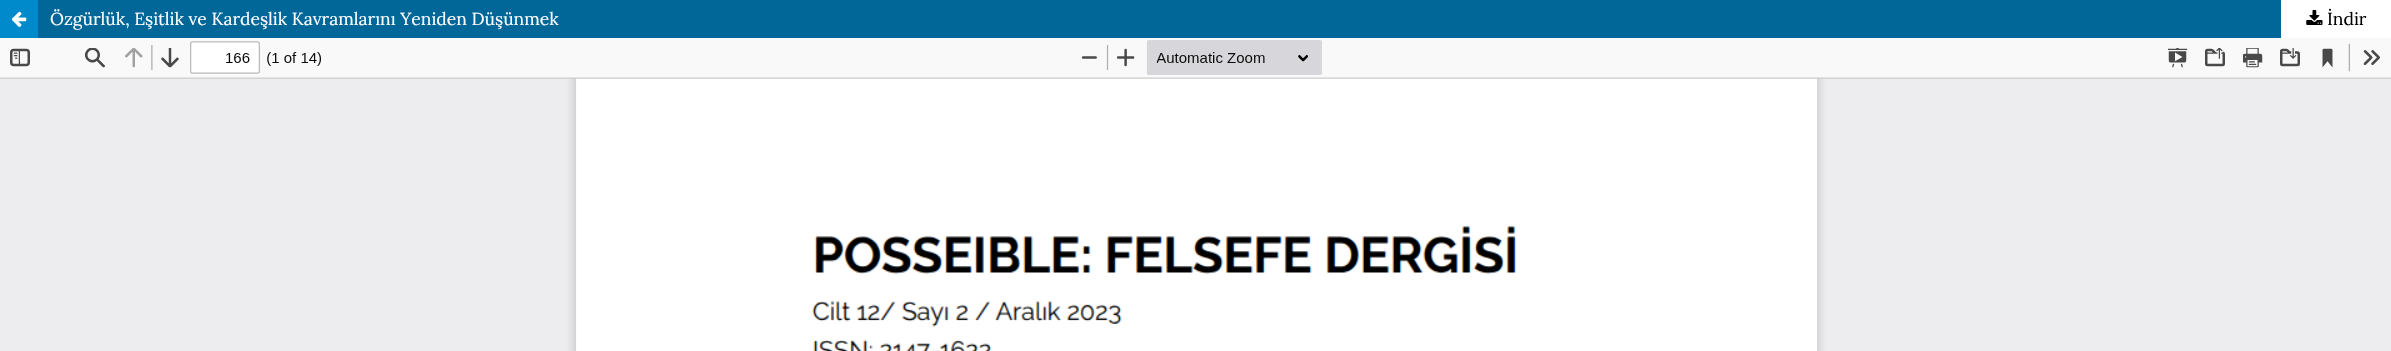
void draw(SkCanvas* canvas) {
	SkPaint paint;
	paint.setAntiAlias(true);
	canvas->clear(0xffffffff);
	paint.setColor(0xff006798);
	canvas->drawRect(SkRect::MakeXYWH(38, 0, 2243, 38), paint);
	paint.setColor(0xff008acb);
	canvas->drawRect(SkRect::MakeXYWH(0, 0, 38, 38), paint);
	canvas->drawImageRect(SkImages::DeferredFromEncodedData(SkData::MakeFromFileName("img1.png")), SkRect::MakeXYWH(11, 11, 16, 16), SkSamplingOptions());
	SkFont f1(fontMgr->matchFamilyStyle("Lora", SkFontStyle::Normal()), 17.5);
	f1.setSubpixel(true);
	paint.setColor(0xffffffff);
	canvas->drawString("Özgürlük, Eşitlik ve Kardeşlik Kavramlarını Yeniden Düşünmek", 50, 25, f1, paint);
	canvas->drawImageRect(SkImages::DeferredFromEncodedData(SkData::MakeFromFileName("img2.png")), SkRect::MakeXYWH(2306, 10, 17, 15), SkSamplingOptions());
	paint.setColor(0xff000000);
	canvas->drawString("İndir", 2327, 25, f1, paint);
	canvas->drawImageRect(SkImages::DeferredFromEncodedData(SkData::MakeFromFileName("img3.png")), SkRect::MakeXYWH(0, 38, 2391, 313), SkSamplingOptions());
}
